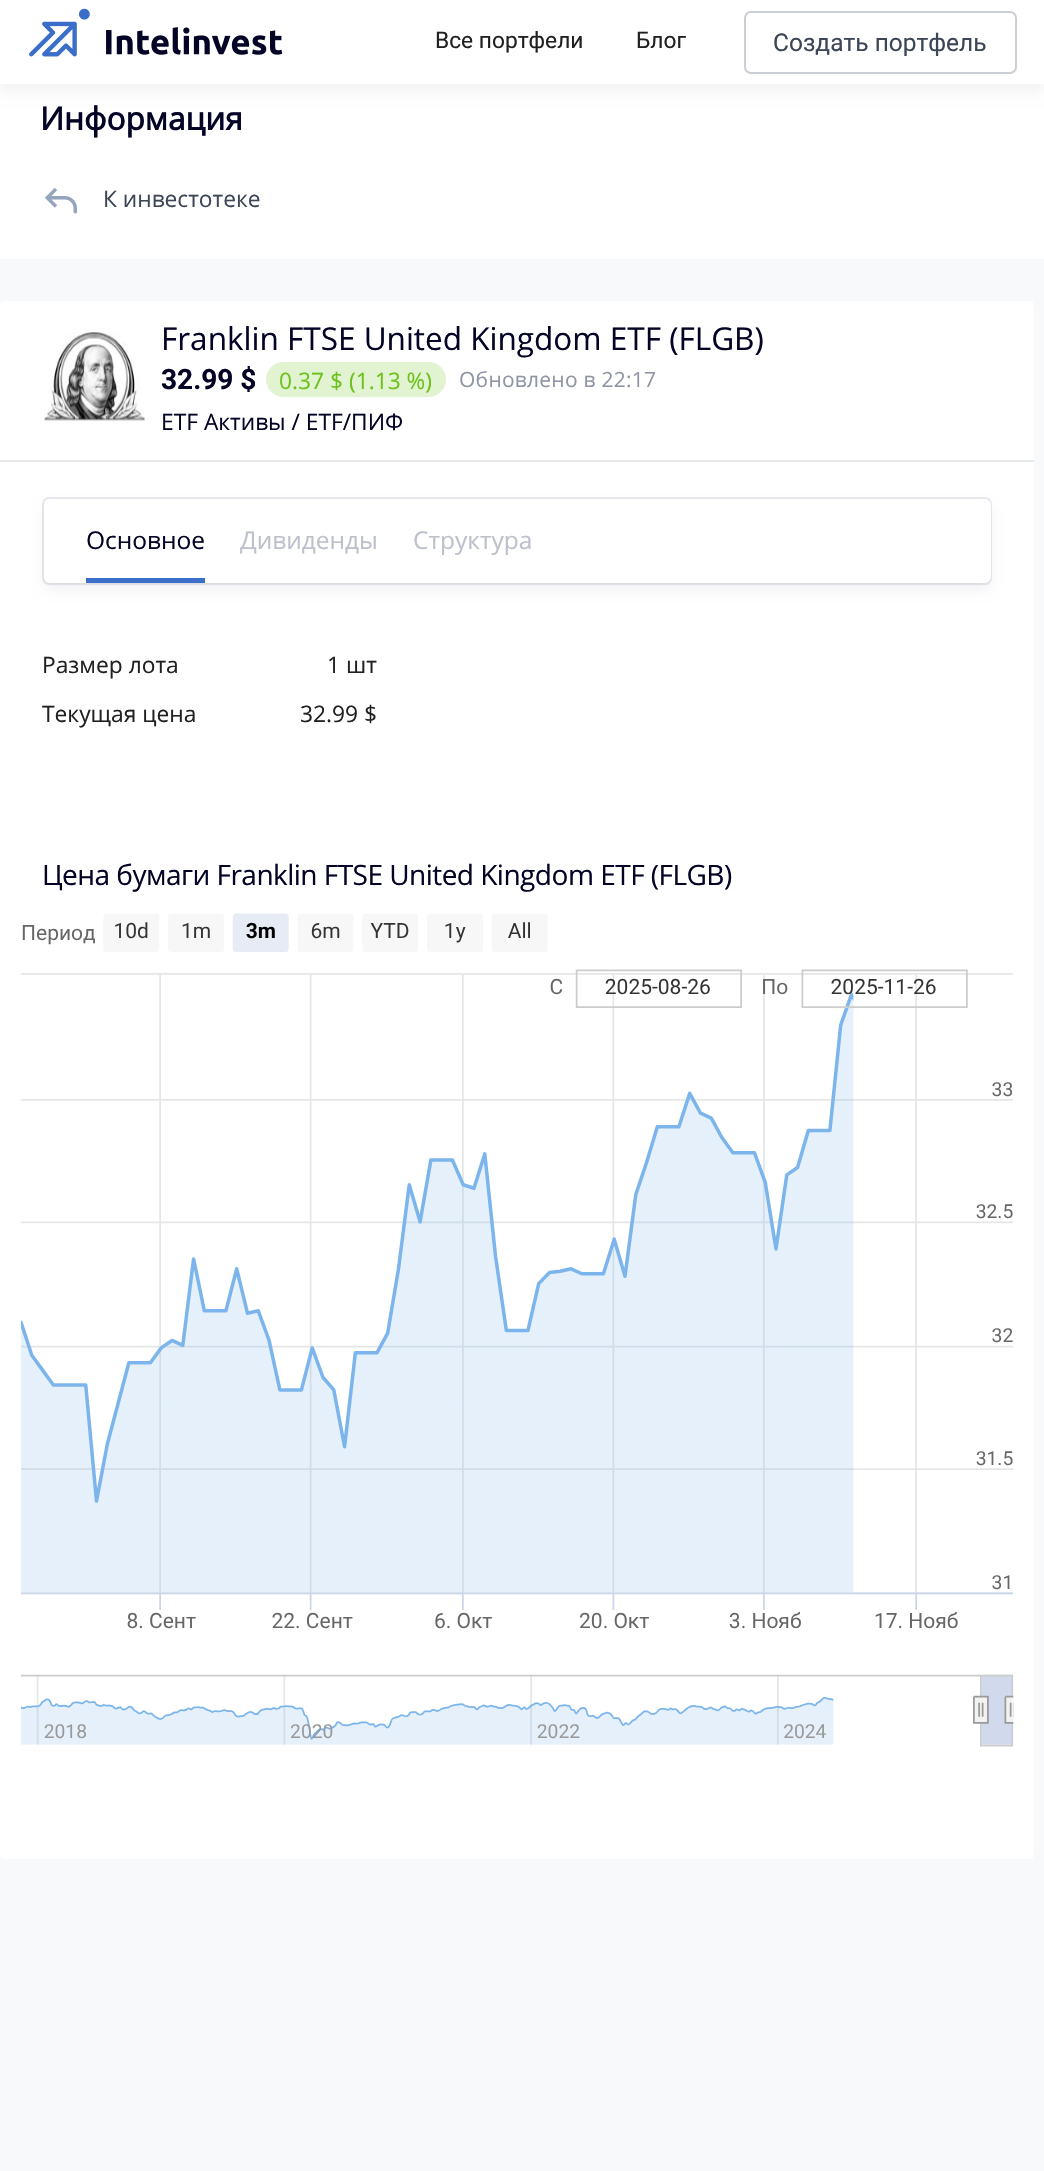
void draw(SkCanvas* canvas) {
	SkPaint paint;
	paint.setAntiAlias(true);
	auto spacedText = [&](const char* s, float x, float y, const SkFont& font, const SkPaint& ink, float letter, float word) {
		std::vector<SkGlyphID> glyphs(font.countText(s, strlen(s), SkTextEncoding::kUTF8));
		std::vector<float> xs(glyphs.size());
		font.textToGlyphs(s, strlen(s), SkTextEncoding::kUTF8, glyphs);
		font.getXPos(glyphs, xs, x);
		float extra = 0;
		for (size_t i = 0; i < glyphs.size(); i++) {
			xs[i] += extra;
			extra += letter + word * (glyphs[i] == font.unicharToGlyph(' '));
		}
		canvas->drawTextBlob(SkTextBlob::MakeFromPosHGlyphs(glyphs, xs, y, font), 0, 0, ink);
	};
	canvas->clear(0xfff7f9fb);
	paint.setColor(0xffffffff);
	canvas->drawRect(SkRect::MakeXYWH(0, 84, 1044, 175), paint);
	paint.setColor(0x0d040427);
	paint.setMaskFilter(SkMaskFilter::MakeBlur(kNormal_SkBlurStyle, 6));
	canvas->drawRect(SkRect::MakeXYWH(0, 7, 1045, 84), paint);
	paint.setMaskFilter(nullptr);
	paint.setColor(0xffffffff);
	canvas->drawRect(SkRect::MakeXYWH(0, 0, 1044, 84), paint);
	canvas->drawImageRect(SkImages::DeferredFromEncodedData(SkData::MakeFromFileName("img1.png")), SkRect::MakeXYWH(29, 8, 254, 49), SkSamplingOptions());
	SkFont f1(fontMgr->matchFamilyStyle("Roboto", SkFontStyle::Normal()), 22.75);
	f1.setSubpixel(true);
	paint.setColor(0xff212121);
	canvas->drawString("Все портфели", 435, 48, f1, paint);
	canvas->drawString("Блог", 636, 48, f1, paint);
	paint.setStroke(true);
	paint.setStrokeWidth(2);
	paint.setColor(0xffcaced5);
	canvas->drawRoundRect(SkRect::MakeXYWH(745, 12, 271, 61), 6, 6, paint);
	SkFont f2(fontMgr->matchFamilyStyle("Roboto", SkFontStyle::Normal()), 24.5);
	f2.setSubpixel(true);
	paint.setStroke(false);
	paint.setColor(0xff3d4656);
	canvas->drawString("Создать портфель", 773, 51, f2, paint);
	SkFont f3(fontMgr->matchFamilyStyle("Open Sans", SkFontStyle::Bold()), 31.5);
	f3.setSubpixel(true);
	paint.setColor(0xff040427);
	canvas->drawString("Информация", 40, 130, f3, paint);
	canvas->drawImageRect(SkImages::DeferredFromEncodedData(SkData::MakeFromFileName("img2.png")), SkRect::MakeXYWH(44, 187, 33, 27), SkSamplingOptions());
	SkFont f4(fontMgr->matchFamilyStyle("Open Sans", SkFontStyle::Normal()), 22.75);
	f4.setSubpixel(true);
	paint.setColor(0xff3d4656);
	canvas->drawString("К инвестотеке", 103, 207, f4, paint);
	paint.setColor(0xffffffff);
	canvas->drawRoundRect(SkRect::MakeXYWH(0, 301, 1034, 1558), 4, 4, paint);
	paint.setColor(0xffe8e9ed);
	canvas->drawRect(SkRect::MakeXYWH(0, 460, 1034, 2), paint);
	canvas->drawImageRect(SkImages::DeferredFromEncodedData(SkData::MakeFromFileName("img3.png")), SkRect::MakeXYWH(44, 332, 101, 90), SkSamplingOptions());
	SkFont f5(fontMgr->matchFamilyStyle("Open Sans", SkFontStyle::Normal()), 31.5);
	f5.setSubpixel(true);
	paint.setColor(0xff040427);
	canvas->drawString("Franklin FTSE United Kingdom ETF (FLGB)", 161, 350, f5, paint);
	SkFont f6(fontMgr->matchFamilyStyle("Roboto", SkFontStyle::Bold()), 28);
	f6.setSubpixel(true);
	canvas->drawString("32.99 $", 161, 389, f6, paint);
	paint.setColor(0xffe2f3d1);
	canvas->drawRoundRect(SkRect::MakeXYWH(266, 362, 180, 35), 17.5, 17.5, paint);
	paint.setColor(0xff6cc11a);
	canvas->drawString("0.37 $ (1.13 %)", 279, 389, f4, paint);
	SkFont f7(fontMgr->matchFamilyStyle("Open Sans", SkFontStyle::Normal()), 21);
	f7.setSubpixel(true);
	paint.setColor(0xff9095a6);
	spacedText("Обновлено в 22:17", 459, 387, f7, paint, 0.25, 0);
	paint.setColor(0xff040427);
	canvas->drawString("ETF Активы / ETF/ПИФ", 161, 430, f4, paint);
	paint.setStroke(true);
	paint.setColor(0xffe8e9ed);
	canvas->drawRoundRect(SkRect::MakeXYWH(43, 498, 948, 86), 6, 6, paint);
	paint.setStroke(false);
	paint.setColor(0x0d040427);
	paint.setMaskFilter(SkMaskFilter::MakeBlur(kNormal_SkBlurStyle, 6));
	canvas->drawRoundRect(SkRect::MakeXYWH(44, 506, 947, 84), 7, 7, paint);
	paint.setMaskFilter(nullptr);
	paint.setColor(0xffffffff);
	canvas->drawRoundRect(SkRect::MakeXYWH(44, 499, 947, 84), 7, 7, paint);
	SkFont f8(fontMgr->matchFamilyStyle("Open Sans", SkFontStyle::Normal()), 24.5);
	f8.setSubpixel(true);
	paint.setColor(0xff040427);
	canvas->drawString("Основное", 86, 549, f8, paint);
	paint.setColor(0xff3b6ec9);
	canvas->drawRect(SkRect::MakeXYWH(86, 578, 119, 5), paint);
	paint.setColor(0xffbdc1cc);
	canvas->drawString("Дивиденды", 240, 549, f8, paint);
	canvas->drawString("Структура", 413, 549, f8, paint);
	paint.setColor(0xff212121);
	canvas->drawString("Размер лота", 42, 673, f4, paint);
	canvas->drawString("1 шт", 327, 673, f4, paint);
	canvas->drawString("Текущая цена", 42, 722, f4, paint);
	canvas->drawString("32.99 $", 300, 722, f4, paint);
	SkFont f9(fontMgr->matchFamilyStyle("Open Sans", SkFontStyle::Normal()), 28);
	f9.setSubpixel(true);
	paint.setColor(0xff040427);
	spacedText("Цена бумаги Franklin FTSE United Kingdom ETF (FLGB)", 42, 885, f9, paint, -0.53, 0);
	canvas->drawImageRect(SkImages::DeferredFromEncodedData(SkData::MakeFromFileName("img4.png")), SkRect::MakeXYWH(21, 913, 993, 834), SkSamplingOptions());
}
